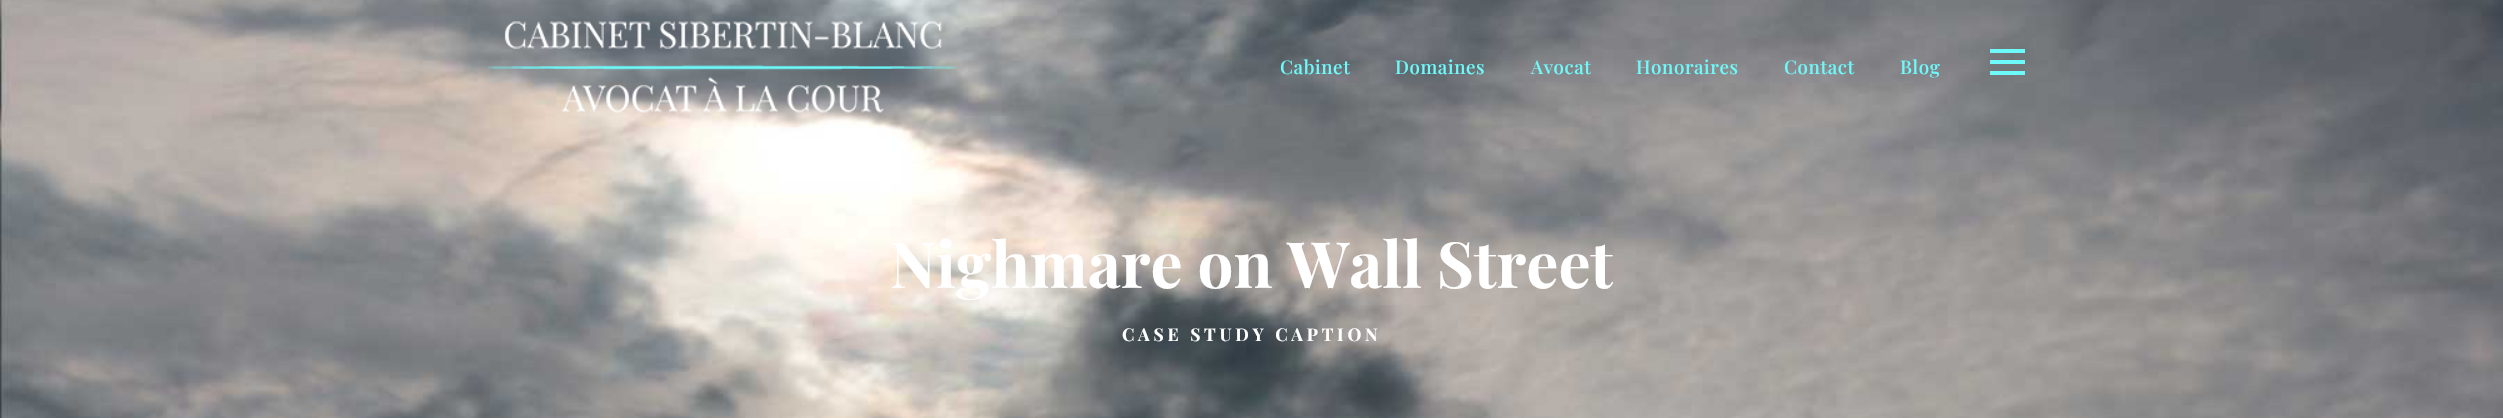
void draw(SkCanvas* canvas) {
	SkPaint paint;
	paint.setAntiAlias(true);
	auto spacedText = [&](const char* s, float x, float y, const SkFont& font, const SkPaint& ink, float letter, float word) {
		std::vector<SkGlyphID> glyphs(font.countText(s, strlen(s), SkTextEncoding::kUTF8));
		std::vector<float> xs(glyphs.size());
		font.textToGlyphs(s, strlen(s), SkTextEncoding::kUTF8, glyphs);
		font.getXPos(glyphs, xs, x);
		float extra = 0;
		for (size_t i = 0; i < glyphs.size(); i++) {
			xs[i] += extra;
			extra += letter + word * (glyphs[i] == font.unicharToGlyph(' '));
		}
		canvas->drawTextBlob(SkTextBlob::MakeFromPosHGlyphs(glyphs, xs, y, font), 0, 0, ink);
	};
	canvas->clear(0xffffffff);
	canvas->drawImageRect(SkImages::DeferredFromEncodedData(SkData::MakeFromFileName("img2.png")), SkRect::MakeXYWH(0, 0, 2503, 418), SkSamplingOptions());
	canvas->drawImageRect(SkImages::DeferredFromEncodedData(SkData::MakeFromFileName("img1.png")), SkRect::MakeXYWH(487, 21, 470, 92), SkSamplingOptions());
	SkFont f1(fontMgr->matchFamilyStyle("Playfair Display", SkFontStyle(500, SkFontStyle::kNormal_Width, SkFontStyle::kUpright_Slant)), 18.75);
	f1.setSubpixel(true);
	paint.setColor(0xff6dfafb);
	spacedText("Cabinet", 1280, 74, f1, paint, 0.6, 0);
	spacedText("Domaines", 1395, 74, f1, paint, 0.6, 0);
	spacedText("Avocat", 1531, 74, f1, paint, 0.6, 0);
	spacedText("Honoraires", 1636, 74, f1, paint, 0.6, 0);
	spacedText("Contact", 1784, 74, f1, paint, 0.6, 0);
	spacedText("Blog", 1900, 74, f1, paint, 0.6, 0);
	canvas->drawRect(SkRect::MakeXYWH(1990, 49, 35, 4), paint);
	canvas->drawRect(SkRect::MakeXYWH(1990, 60, 35, 4), paint);
	canvas->drawRect(SkRect::MakeXYWH(1990, 71, 35, 4), paint);
	SkFont f2(fontMgr->matchFamilyStyle("Playfair Display", SkFontStyle::Bold()), 63.75);
	f2.setSubpixel(true);
	paint.setColor(0xffffffff);
	canvas->drawString("Nighmare on Wall Street", 890, 288, f2, paint);
	SkFont f3(fontMgr->matchFamilyStyle("Playfair Display", SkFontStyle::Bold()), 17.5);
	f3.setSubpixel(true);
	spacedText("CASE STUDY CAPTION", 1122, 341, f3, paint, 3.75, 0);
}
